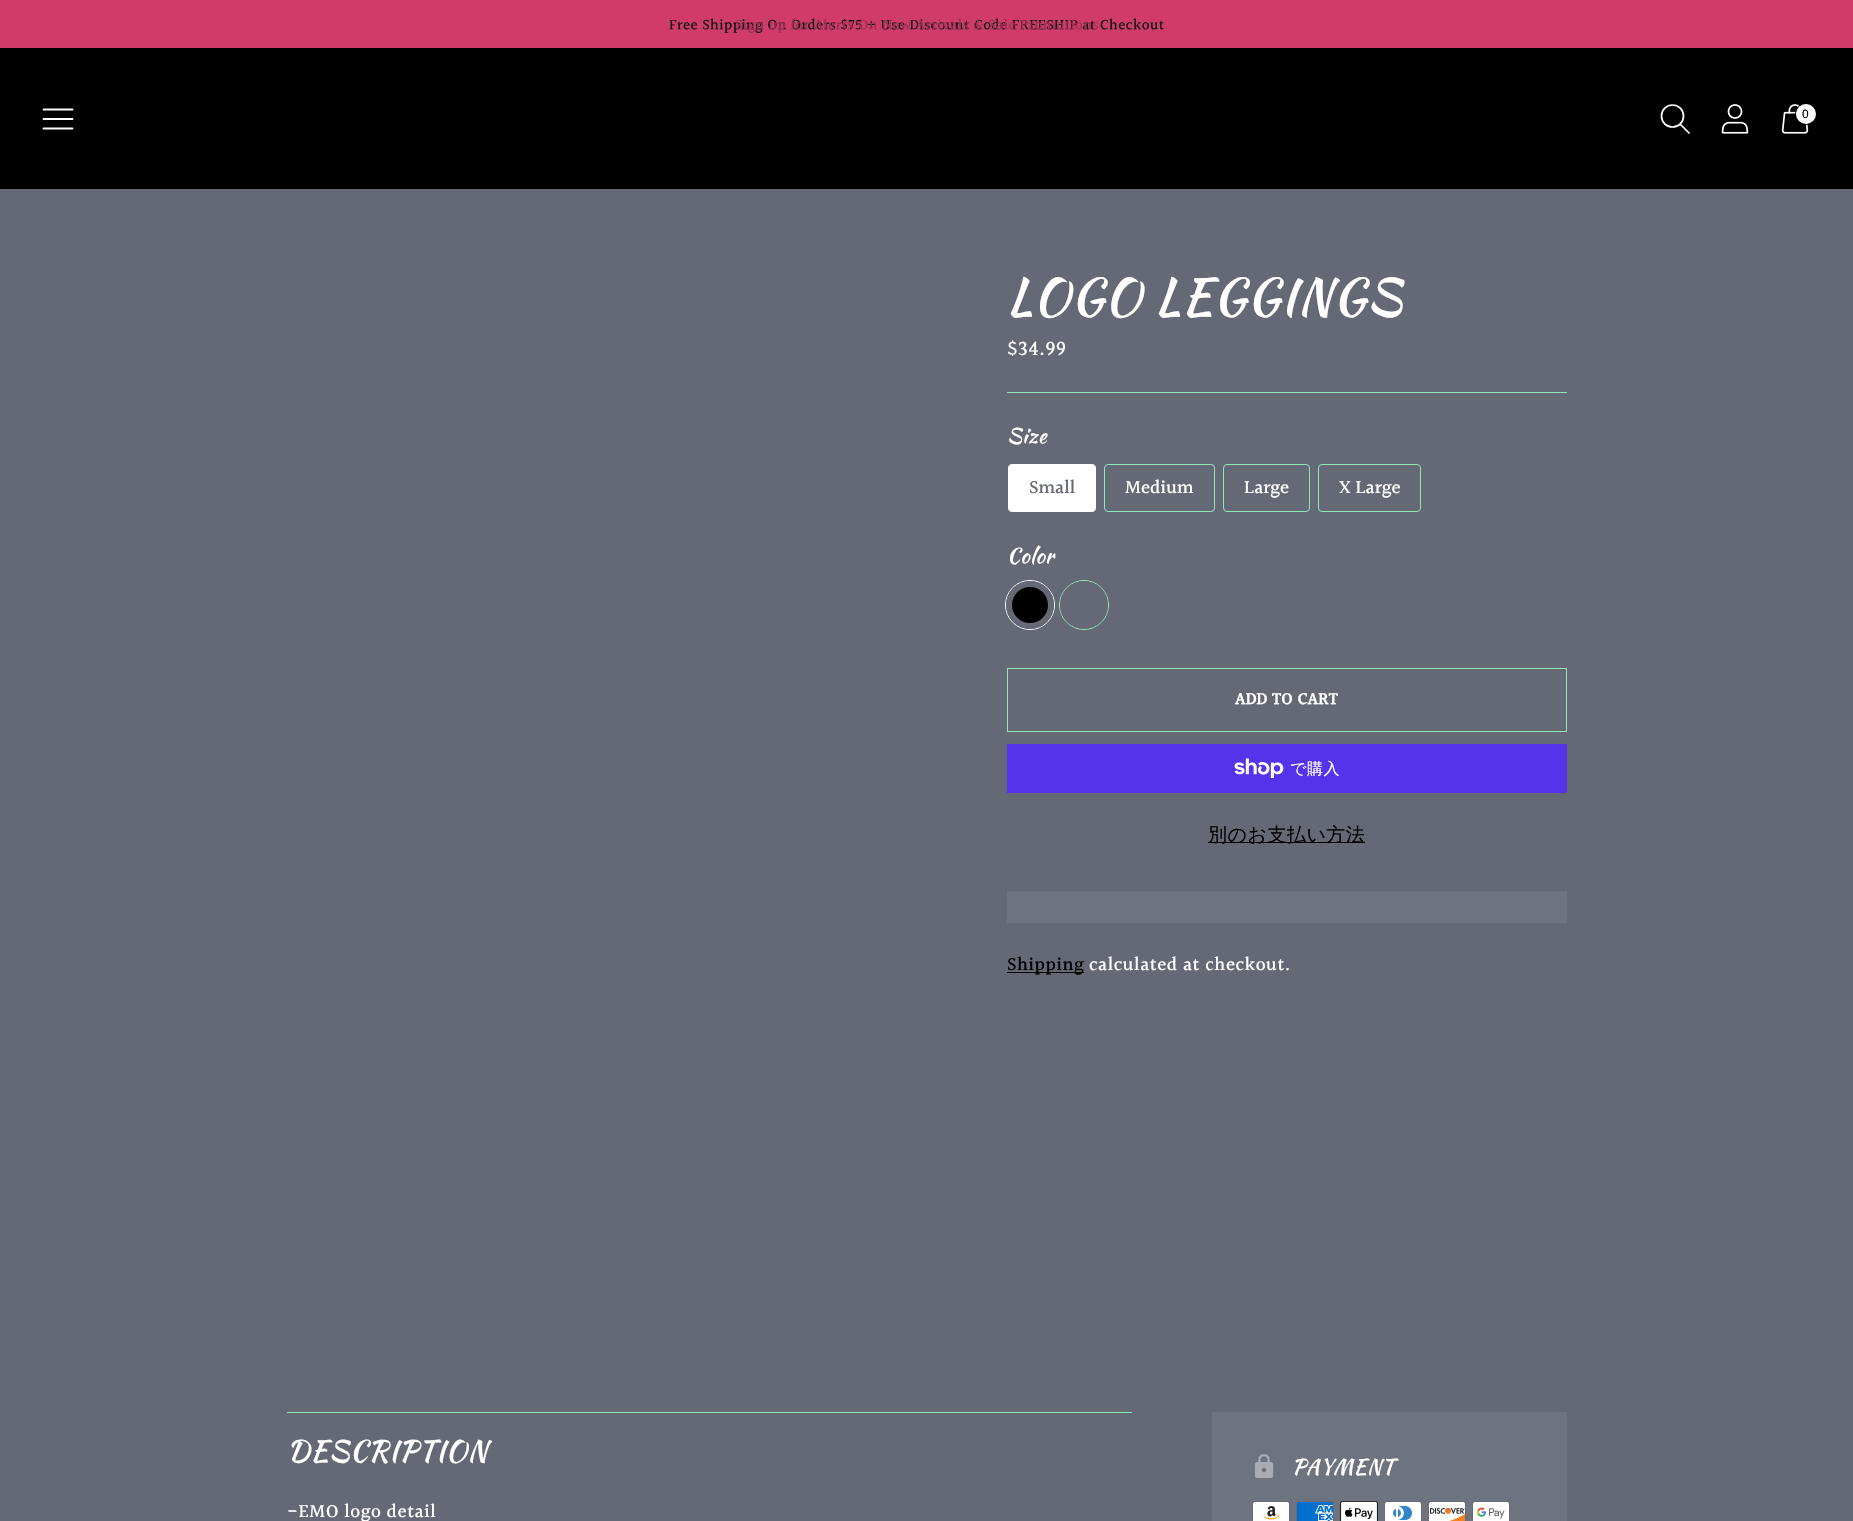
void draw(SkCanvas* canvas) {
	SkPaint paint;
	paint.setAntiAlias(true);
	auto spacedText = [&](const char* s, float x, float y, const SkFont& font, const SkPaint& ink, float letter, float word) {
		std::vector<SkGlyphID> glyphs(font.countText(s, strlen(s), SkTextEncoding::kUTF8));
		std::vector<float> xs(glyphs.size());
		font.textToGlyphs(s, strlen(s), SkTextEncoding::kUTF8, glyphs);
		font.getXPos(glyphs, xs, x);
		float extra = 0;
		for (size_t i = 0; i < glyphs.size(); i++) {
			xs[i] += extra;
			extra += letter + word * (glyphs[i] == font.unicharToGlyph(' '));
		}
		canvas->drawTextBlob(SkTextBlob::MakeFromPosHGlyphs(glyphs, xs, y, font), 0, 0, ink);
	};
	auto svgPath = [&](const char* data, bool evenOdd = false) {
		SkPath result = *SkParsePath::FromSVGString(data);
		if (evenOdd) result.setFillType(SkPathFillType::kEvenOdd);
		return result;
	};
	canvas->clear(0xff656975);
	paint.setColor(0xffd13b6c);
	canvas->drawRect(SkRect::MakeXYWH(0, 0, 1853, 48), paint);
	SkFont f1(fontMgr->matchFamilyStyle("Halant", SkFontStyle(500, SkFontStyle::kNormal_Width, SkFontStyle::kUpright_Slant)), 15);
	f1.setSubpixel(true);
	paint.setColor(0xff141415);
	spacedText("Free Shipping On Orders $75 + Use Discount Code FREESHIP at Checkout", 669, 30, f1, paint, 0.38, 0);
	paint.setColor(0xff9c3054);
	spacedText("Sign up for Alerts On New Arrivals & Sale Promotions", 735, 30, f1, paint, 0.38, 0);
	paint.setColor(0xff000000);
	canvas->drawRect(SkRect::MakeXYWH(0, 48, 1853, 141), paint);
	paint.setStroke(true);
	paint.setStrokeWidth(1.8);
	paint.setStrokeCap(SkPaint::kRound_Cap);
	paint.setStrokeJoin(SkPaint::kRound_Join);
	paint.setColor(0xffffffff);
	canvas->drawPath(svgPath("M43.5 119H72.5M43.5 109.5H72.5M43.5 128.5H72.5"), paint);
	paint.setStrokeWidth(1.7);
	paint.setStrokeCap(SkPaint::kButt_Cap);
	paint.setStrokeJoin(SkPaint::kMiter_Join);
	canvas->drawCircle(1672.5, 116, 11, paint);
	paint.setStrokeCap(SkPaint::kRound_Cap);
	paint.setStrokeJoin(SkPaint::kRound_Join);
	canvas->drawPath(svgPath("M1680.5 124.5L1689 133"), paint);
	canvas->drawImageRect(SkImages::DeferredFromEncodedData(SkData::MakeFromFileName("img1.png")), SkRect::MakeXYWH(1721, 104, 28, 30), SkSamplingOptions());
	canvas->drawImageRect(SkImages::DeferredFromEncodedData(SkData::MakeFromFileName("img2.png")), SkRect::MakeXYWH(1781, 104, 28, 30), SkSamplingOptions());
	paint.setStrokeWidth(1);
	paint.setStrokeCap(SkPaint::kButt_Cap);
	paint.setStrokeJoin(SkPaint::kMiter_Join);
	paint.setColor(0xff000000);
	canvas->drawCircle(1806, 114, 10.5, paint);
	paint.setStroke(false);
	paint.setColor(0xffffffff);
	canvas->drawCircle(1806, 114, 10, paint);
	SkFont f2(fontMgr->matchFamilyStyle("Liberation Sans", SkFontStyle::Normal()), 12);
	f2.setSubpixel(true);
	paint.setColor(0xff000000);
	spacedText("0", 1802, 118, f2, paint, 0.5, 0);
	SkFont f3(fontMgr->matchFamilyStyle("Kaushan Script", SkFontStyle::Normal()), 50);
	f3.setSubpixel(true);
	paint.setColor(0xffffffff);
	spacedText("LOGO LEGGINGS", 1007, 314, f3, paint, 1.25, 0);
	SkFont f4(fontMgr->matchFamilyStyle("Halant", SkFontStyle(500, SkFontStyle::kNormal_Width, SkFontStyle::kUpright_Slant)), 21);
	f4.setSubpixel(true);
	spacedText("$34.99", 1007, 356, f4, paint, 0.5, 0);
	paint.setColor(0xff8fe7b8);
	canvas->drawRect(SkRect::MakeXYWH(1007, 392, 560, 1), paint);
	SkFont f5(fontMgr->matchFamilyStyle("Kaushan Script", SkFontStyle::Normal()), 21);
	f5.setSubpixel(true);
	paint.setColor(0xffffffff);
	spacedText("Size", 1007, 443, f5, paint, 0.5, 0);
	canvas->drawRoundRect(SkRect::MakeXYWH(1008.5, 464.5, 87, 47), 3.5, 3.5, paint);
	paint.setStroke(true);
	canvas->drawRoundRect(SkRect::MakeXYWH(1008.5, 464.5, 87, 47), 3.5, 3.5, paint);
	SkFont f6(fontMgr->matchFamilyStyle("Halant", SkFontStyle(500, SkFontStyle::kNormal_Width, SkFontStyle::kUpright_Slant)), 19);
	f6.setSubpixel(true);
	paint.setStroke(false);
	paint.setColor(0xff656975);
	canvas->drawString("Small", 1029, 494, f6, paint);
	paint.setStroke(true);
	paint.setColor(0xff8fe7b8);
	canvas->drawRoundRect(SkRect::MakeXYWH(1104.5, 464.5, 110, 47), 3.5, 3.5, paint);
	paint.setStroke(false);
	paint.setColor(0xffffffff);
	canvas->drawString("Medium", 1125, 494, f6, paint);
	paint.setStroke(true);
	paint.setColor(0xff8fe7b8);
	canvas->drawRoundRect(SkRect::MakeXYWH(1223.5, 464.5, 86, 47), 3.5, 3.5, paint);
	paint.setStroke(false);
	paint.setColor(0xffffffff);
	canvas->drawString("Large", 1244, 494, f6, paint);
	paint.setStroke(true);
	paint.setColor(0xff8fe7b8);
	canvas->drawRoundRect(SkRect::MakeXYWH(1318.5, 464.5, 102, 47), 3.5, 3.5, paint);
	paint.setStroke(false);
	paint.setColor(0xffffffff);
	canvas->drawString("X Large", 1339, 494, f6, paint);
	spacedText("Color", 1007, 563, f5, paint, 0.5, 0);
	paint.setStroke(true);
	canvas->drawCircle(1030, 605, 24.5, paint);
	paint.setStroke(false);
	paint.setColor(0xff000000);
	canvas->drawCircle(1030, 605, 21, paint);
	paint.setStroke(true);
	paint.setStrokeWidth(6);
	paint.setColor(0xff656975);
	canvas->drawCircle(1030, 605, 21, paint);
	paint.setStrokeWidth(1);
	paint.setColor(0xff8fe7b8);
	canvas->drawCircle(1084, 605, 24.5, paint);
	paint.setStrokeWidth(6);
	paint.setColor(0xff656975);
	canvas->drawCircle(1084, 605, 21, paint);
	paint.setStrokeWidth(1);
	paint.setColor(0xff8fe7b8);
	canvas->drawRect(SkRect::MakeXYWH(1007.5, 668.5, 559, 63), paint);
	SkFont f7(fontMgr->matchFamilyStyle("Halant", SkFontStyle::Bold()), 17);
	f7.setSubpixel(true);
	paint.setStroke(false);
	paint.setColor(0xffffffff);
	spacedText("ADD TO CART", 1235, 705, f7, paint, 0.25, 0);
	paint.setColor(0xff5433eb);
	canvas->drawRect(SkRect::MakeXYWH(1007, 744, 560, 49), paint);
	canvas->drawImageRect(SkImages::DeferredFromEncodedData(SkData::MakeFromFileName("img3.png")), SkRect::MakeXYWH(1234, 758, 50, 20), SkSamplingOptions());
	SkFont f8(fontMgr->matchFamilyStyle("WenQuanYi Zen Hei", SkFontStyle(500, SkFontStyle::kNormal_Width, SkFontStyle::kUpright_Slant)), 16);
	f8.setSubpixel(true);
	paint.setColor(0xffffffff);
	spacedText("で購入", 1290, 774, f8, paint, 0.5, 0);
	paint.setColor(0xff000000);
	canvas->drawRect(SkRect::MakeXYWH(1208, 842, 157, 1), paint);
	SkFont f9(fontMgr->matchFamilyStyle("WenQuanYi Zen Hei", SkFontStyle(500, SkFontStyle::kNormal_Width, SkFontStyle::kUpright_Slant)), 19);
	f9.setSubpixel(true);
	spacedText("別のお支払い方法", 1208, 841, f9, paint, 0.5, 0);
	paint.setColor(0xff6e7380);
	canvas->drawRect(SkRect::MakeXYWH(1007, 891, 560, 32), paint);
	paint.setColor(0xff000000);
	canvas->drawRect(SkRect::MakeXYWH(1007, 972, 77, 1), paint);
	spacedText("Shipping", 1007, 971, f6, paint, 0.5, 0);
	paint.setColor(0xffffffff);
	spacedText("calculated at checkout.", 1089, 971, f6, paint, 0.5, 0);
	paint.setColor(0xff8fe7b8);
	canvas->drawRect(SkRect::MakeXYWH(287, 1412, 845, 1), paint);
	SkFont f10(fontMgr->matchFamilyStyle("Kaushan Script", SkFontStyle::Normal()), 29);
	f10.setSubpixel(true);
	paint.setColor(0xffffffff);
	spacedText("DESCRIPTION", 287, 1461, f10, paint, 0.75, 0);
	spacedText("-EMO logo detail", 287, 1518, f6, paint, 0.5, 0);
	paint.setColor(0xff6e7380);
	canvas->drawRect(SkRect::MakeXYWH(1212, 1412, 355, 109), paint);
	canvas->drawImageRect(SkImages::DeferredFromEncodedData(SkData::MakeFromFileName("img4.png")), SkRect::MakeXYWH(1254, 1454, 20, 24), SkSamplingOptions());
	paint.setColor(0xffffffff);
	spacedText("PAYMENT", 1292, 1474, f5, paint, 0.5, 0);
	canvas->drawImageRect(SkImages::DeferredFromEncodedData(SkData::MakeFromFileName("img5.png")), SkRect::MakeXYWH(1252, 1501, 38, 20), SkSamplingOptions());
	canvas->drawImageRect(SkImages::DeferredFromEncodedData(SkData::MakeFromFileName("img6.png")), SkRect::MakeXYWH(1296, 1501, 38, 20), SkSamplingOptions());
	canvas->drawImageRect(SkImages::DeferredFromEncodedData(SkData::MakeFromFileName("img7.png")), SkRect::MakeXYWH(1340, 1501, 38, 20), SkSamplingOptions());
	canvas->drawImageRect(SkImages::DeferredFromEncodedData(SkData::MakeFromFileName("img8.png")), SkRect::MakeXYWH(1384, 1501, 38, 20), SkSamplingOptions());
	canvas->drawImageRect(SkImages::DeferredFromEncodedData(SkData::MakeFromFileName("img9.png")), SkRect::MakeXYWH(1428, 1501, 38, 20), SkSamplingOptions());
	canvas->drawImageRect(SkImages::DeferredFromEncodedData(SkData::MakeFromFileName("img10.png")), SkRect::MakeXYWH(1472, 1501, 38, 20), SkSamplingOptions());
}
